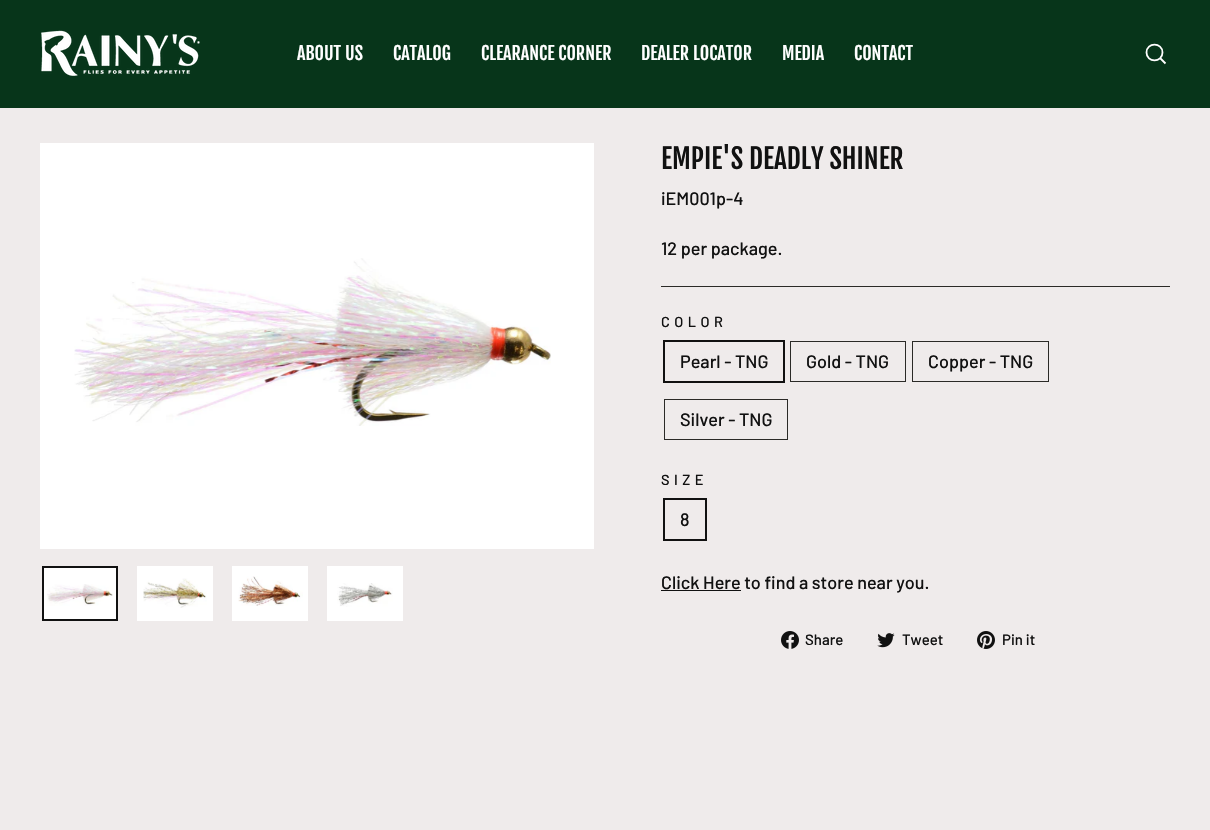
void draw(SkCanvas* canvas) {
	SkPaint paint;
	paint.setAntiAlias(true);
	auto spacedText = [&](const char* s, float x, float y, const SkFont& font, const SkPaint& ink, float letter, float word) {
		std::vector<SkGlyphID> glyphs(font.countText(s, strlen(s), SkTextEncoding::kUTF8));
		std::vector<float> xs(glyphs.size());
		font.textToGlyphs(s, strlen(s), SkTextEncoding::kUTF8, glyphs);
		font.getXPos(glyphs, xs, x);
		float extra = 0;
		for (size_t i = 0; i < glyphs.size(); i++) {
			xs[i] += extra;
			extra += letter + word * (glyphs[i] == font.unicharToGlyph(' '));
		}
		canvas->drawTextBlob(SkTextBlob::MakeFromPosHGlyphs(glyphs, xs, y, font), 0, 0, ink);
	};
	auto svgPath = [&](const char* data, bool evenOdd = false) {
		SkPath result = *SkParsePath::FromSVGString(data);
		if (evenOdd) result.setFillType(SkPathFillType::kEvenOdd);
		return result;
	};
	canvas->clear(0xffefebeb);
	paint.setColor(0xff07351a);
	canvas->drawRect(SkRect::MakeXYWH(0, 0, 1210, 108), paint);
	canvas->drawImageRect(SkImages::DeferredFromEncodedData(SkData::MakeFromFileName("img1.png")), SkRect::MakeXYWH(41, 30, 159, 46), SkSamplingOptions());
	SkFont f1(fontMgr->matchFamilyStyle("Fjalla One", SkFontStyle::Normal()), 18);
	f1.setSubpixel(true);
	paint.setColor(0xffffffff);
	canvas->drawString("ABOUT US", 297, 60, f1, paint);
	canvas->drawString("CATALOG", 393, 60, f1, paint);
	canvas->drawString("CLEARANCE CORNER", 481, 60, f1, paint);
	canvas->drawString("DEALER LOCATOR", 641, 60, f1, paint);
	canvas->drawString("MEDIA", 782, 60, f1, paint);
	canvas->drawString("CONTACT", 854, 60, f1, paint);
	paint.setStroke(true);
	paint.setStrokeWidth(1.8);
	canvas->drawPath(svgPath("M1162.5 52.5C1162.5 63 1146.5 63 1146.5 52.5C1146.5 42 1162.5 42 1162.5 52.5ZM1165.5 63.5L1160.5 58.5"), paint);
	paint.setStroke(false);
	canvas->drawRect(SkRect::MakeXYWH(40, 143, 554, 406), paint);
	canvas->drawImageRect(SkImages::DeferredFromEncodedData(SkData::MakeFromFileName("img2.png")), SkRect::MakeXYWH(74, 258, 477, 168), SkSamplingOptions());
	canvas->drawRect(SkRect::MakeXYWH(44, 568, 72, 51), paint);
	canvas->drawImageRect(SkImages::DeferredFromEncodedData(SkData::MakeFromFileName("img3.png")), SkRect::MakeXYWH(47, 584, 66, 22), SkSamplingOptions());
	paint.setStroke(true);
	paint.setStrokeWidth(2);
	paint.setColor(0xff111111);
	canvas->drawRect(SkRect::MakeXYWH(43, 567, 74, 53), paint);
	paint.setStroke(false);
	paint.setColor(0xffffffff);
	canvas->drawRect(SkRect::MakeXYWH(137, 566, 76, 55), paint);
	canvas->drawImageRect(SkImages::DeferredFromEncodedData(SkData::MakeFromFileName("img4.png")), SkRect::MakeXYWH(143, 578, 64, 30), SkSamplingOptions());
	canvas->drawRect(SkRect::MakeXYWH(232, 566, 76, 55), paint);
	canvas->drawImageRect(SkImages::DeferredFromEncodedData(SkData::MakeFromFileName("img5.png")), SkRect::MakeXYWH(238, 576, 65, 30), SkSamplingOptions());
	canvas->drawRect(SkRect::MakeXYWH(327, 566, 76, 55), paint);
	canvas->drawImageRect(SkImages::DeferredFromEncodedData(SkData::MakeFromFileName("img6.png")), SkRect::MakeXYWH(337, 583, 56, 24), SkSamplingOptions());
	SkFont f2(fontMgr->matchFamilyStyle("Fjalla One", SkFontStyle::Normal()), 27.25);
	f2.setSubpixel(true);
	paint.setColor(0xff111111);
	canvas->drawString("EMPIE'S DEADLY SHINER", 661, 169, f2, paint);
	SkFont f3(fontMgr->matchFamilyStyle("Barlow", SkFontStyle(500, SkFontStyle::kNormal_Width, SkFontStyle::kUpright_Slant)), 18);
	f3.setSubpixel(true);
	canvas->drawString("iEM001p-4", 661, 205, f3, paint);
	canvas->drawString("12 per package.", 661, 255, f3, paint);
	paint.setColor(0xff2b2a27);
	canvas->drawRect(SkRect::MakeXYWH(661, 286, 509, 1), paint);
	SkFont f4(fontMgr->matchFamilyStyle("Barlow", SkFontStyle(500, SkFontStyle::kNormal_Width, SkFontStyle::kUpright_Slant)), 14.5);
	f4.setSubpixel(true);
	paint.setColor(0xff111111);
	spacedText("COLOR", 661, 327, f4, paint, 4.5, 0);
	paint.setStroke(true);
	canvas->drawRect(SkRect::MakeXYWH(664, 341, 120, 41), paint);
	paint.setStroke(false);
	canvas->drawString("Pearl - TNG", 680, 368, f3, paint);
	paint.setStroke(true);
	paint.setStrokeWidth(1);
	paint.setColor(0xff2b2a27);
	canvas->drawRect(SkRect::MakeXYWH(790.5, 341.5, 115, 40), paint);
	paint.setStroke(false);
	paint.setColor(0xff111111);
	canvas->drawString("Gold - TNG", 806, 368, f3, paint);
	paint.setStroke(true);
	paint.setColor(0xff2b2a27);
	canvas->drawRect(SkRect::MakeXYWH(912.5, 341.5, 136, 40), paint);
	paint.setStroke(false);
	paint.setColor(0xff111111);
	canvas->drawString("Copper - TNG", 928, 368, f3, paint);
	paint.setStroke(true);
	paint.setColor(0xff2b2a27);
	canvas->drawRect(SkRect::MakeXYWH(664.5, 399.5, 123, 40), paint);
	paint.setStroke(false);
	paint.setColor(0xff111111);
	canvas->drawString("Silver - TNG", 680, 426, f3, paint);
	spacedText("SIZE", 661, 485, f4, paint, 4.5, 0);
	paint.setStroke(true);
	paint.setStrokeWidth(2);
	canvas->drawRect(SkRect::MakeXYWH(664, 499, 42, 41), paint);
	paint.setStroke(false);
	canvas->drawString("8", 680, 526, f3, paint);
	canvas->drawRect(SkRect::MakeXYWH(661, 590, 80, 1), paint);
	canvas->drawString("Click Here to find a store near you.", 661, 589, f3, paint);
	canvas->drawImageRect(SkImages::DeferredFromEncodedData(SkData::MakeFromFileName("img7.png")), SkRect::MakeXYWH(781, 631, 18, 18), SkSamplingOptions());
	SkFont f5(fontMgr->matchFamilyStyle("Barlow", SkFontStyle(500, SkFontStyle::kNormal_Width, SkFontStyle::kUpright_Slant)), 15);
	f5.setSubpixel(true);
	canvas->drawString("Share", 805, 645, f5, paint);
	canvas->drawImageRect(SkImages::DeferredFromEncodedData(SkData::MakeFromFileName("img8.png")), SkRect::MakeXYWH(877, 633, 18, 15), SkSamplingOptions());
	canvas->drawString("Tweet", 902, 645, f5, paint);
	canvas->drawImageRect(SkImages::DeferredFromEncodedData(SkData::MakeFromFileName("img9.png")), SkRect::MakeXYWH(977, 631, 18, 18), SkSamplingOptions());
	canvas->drawString("Pin it", 1002, 645, f5, paint);
}
